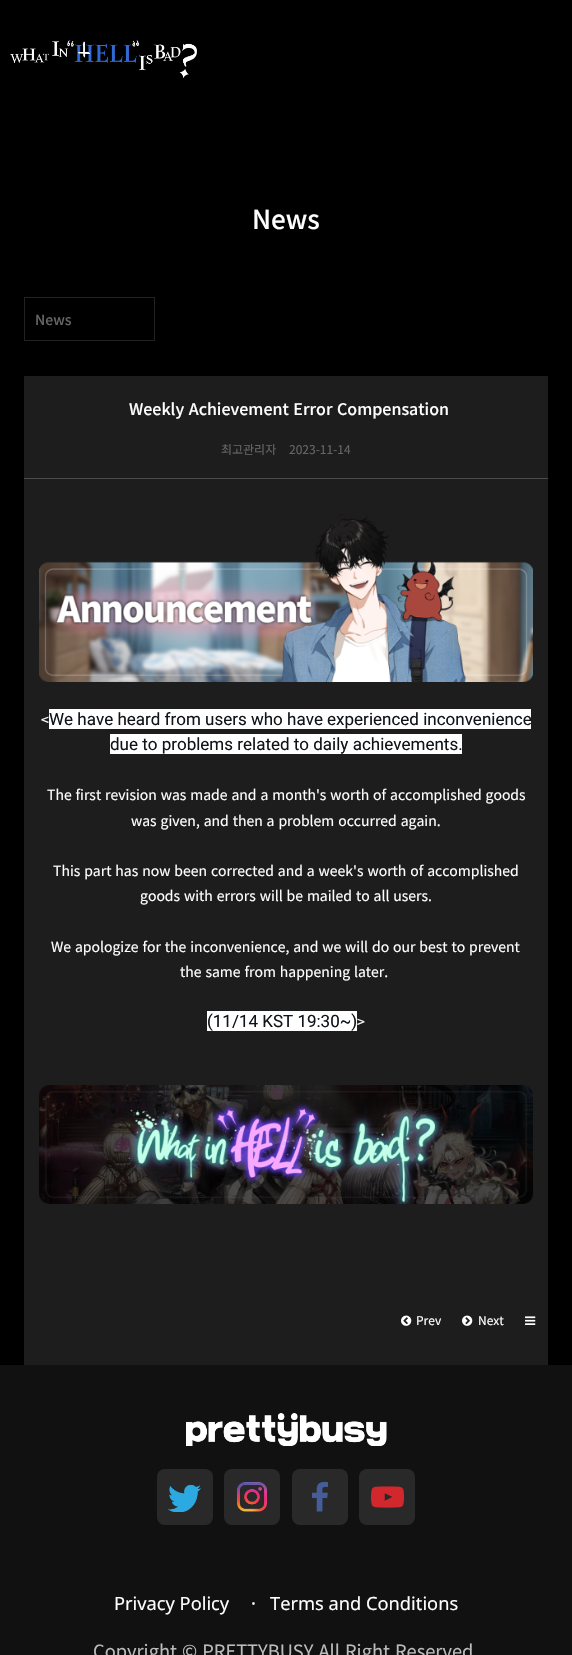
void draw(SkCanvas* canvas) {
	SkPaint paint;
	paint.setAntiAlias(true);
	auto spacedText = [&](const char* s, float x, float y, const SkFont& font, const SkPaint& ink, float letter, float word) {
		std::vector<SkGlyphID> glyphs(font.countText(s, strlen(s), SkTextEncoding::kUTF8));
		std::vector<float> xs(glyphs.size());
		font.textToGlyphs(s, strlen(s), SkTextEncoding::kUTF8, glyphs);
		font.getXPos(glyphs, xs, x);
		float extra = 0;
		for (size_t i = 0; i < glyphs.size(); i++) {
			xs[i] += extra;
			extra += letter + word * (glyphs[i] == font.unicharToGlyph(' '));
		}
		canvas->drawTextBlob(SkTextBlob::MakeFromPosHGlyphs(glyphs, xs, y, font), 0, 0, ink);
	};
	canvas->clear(0xff000000);
	canvas->drawImageRect(SkImages::DeferredFromEncodedData(SkData::MakeFromFileName("img1.png")), SkRect::MakeXYWH(10, 40, 187, 38), SkSamplingOptions());
	SkFont f1(fontMgr->matchFamilyStyle("Noto Sans KR", SkFontStyle(500, SkFontStyle::kNormal_Width, SkFontStyle::kUpright_Slant)), 26);
	f1.setSubpixel(true);
	paint.setColor(0xffffffff);
	canvas->drawString("News", 252, 229, f1, paint);
	paint.setStroke(true);
	paint.setStrokeWidth(1);
	paint.setColor(0xff222222);
	canvas->drawRect(SkRect::MakeXYWH(24.5, 297.5, 130, 43), paint);
	SkFont f2(fontMgr->matchFamilyStyle("Noto Sans KR", SkFontStyle(500, SkFontStyle::kNormal_Width, SkFontStyle::kUpright_Slant)), 14);
	f2.setSubpixel(true);
	paint.setStroke(false);
	paint.setColor(0xff666666);
	canvas->drawString("News", 35, 325, f2, paint);
	paint.setColor(0xff1d1d1d);
	canvas->drawRect(SkRect::MakeXYWH(24, 376, 524, 989), paint);
	paint.setColor(0xff4a4a4a);
	canvas->drawRect(SkRect::MakeXYWH(24, 478, 524, 1), paint);
	SkFont f3(fontMgr->matchFamilyStyle("Noto Sans KR", SkFontStyle(500, SkFontStyle::kNormal_Width, SkFontStyle::kUpright_Slant)), 16);
	f3.setSubpixel(true);
	paint.setColor(0xffffffff);
	spacedText("Weekly Achievement Error Compensation", 129, 415, f3, paint, 0, 1);
	SkFont f4(fontMgr->matchFamilyStyle("Noto Sans KR", SkFontStyle::Normal()), 12);
	f4.setSubpixel(true);
	paint.setColor(0xff666666);
	canvas->drawString("최고관리자", 221, 454, f4, paint);
	canvas->drawString("2023-11-14", 289, 454, f4, paint);
	canvas->drawImageRect(SkImages::DeferredFromEncodedData(SkData::MakeFromFileName("img2.png")), SkRect::MakeXYWH(39, 514, 494, 168), SkSamplingOptions());
	SkFont f5(fontMgr->matchFamilyStyle("Noto Sans KR", SkFontStyle::Normal()), 14);
	f5.setSubpixel(true);
	paint.setColor(0xffffffff);
	canvas->drawString("<", 41, 725, f5, paint);
	canvas->drawRect(SkRect::MakeXYWH(49, 709, 482, 20), paint);
	SkFont f6(fontMgr->matchFamilyStyle("Roboto", SkFontStyle::Normal()), 17);
	f6.setSubpixel(true);
	paint.setColor(0xff0f1419);
	canvas->drawString("We have heard from users who have experienced inconvenience", 49, 725, f6, paint);
	paint.setColor(0xffffffff);
	canvas->drawRect(SkRect::MakeXYWH(110, 734, 352, 20), paint);
	paint.setColor(0xff0f1419);
	canvas->drawString("due to problems related to daily achievements.", 110, 750, f6, paint);
	paint.setColor(0xffffffff);
	spacedText("The first revision was made and a month's worth of accomplished goods", 47, 800, f5, paint, 0, 0.75);
	spacedText("was given, and then a problem occurred again.", 131, 826, f5, paint, 0, 0.75);
	spacedText("This part has now been corrected and a week's worth of accomplished", 53, 876, f5, paint, 0, 0.75);
	spacedText("goods with errors will be mailed to all users.", 140, 901, f5, paint, 0, 0.75);
	spacedText("We apologize for the inconvenience, and we will do our best to prevent", 51, 952, f5, paint, 0, 0.75);
	spacedText("the same from happening later.", 180, 977, f5, paint, 0, 0.75);
	canvas->drawRect(SkRect::MakeXYWH(207, 1011, 150, 20), paint);
	paint.setColor(0xff0f1419);
	canvas->drawString("(11/14 KST 19:30~)", 207, 1027, f6, paint);
	paint.setColor(0xffffffff);
	canvas->drawString(">", 357, 1027, f5, paint);
	canvas->drawImageRect(SkImages::DeferredFromEncodedData(SkData::MakeFromFileName("img3.png")), SkRect::MakeXYWH(39, 1085, 494, 119), SkSamplingOptions());
	canvas->drawImageRect(SkImages::DeferredFromEncodedData(SkData::MakeFromFileName("img4.png")), SkRect::MakeXYWH(401, 1315, 11, 11), SkSamplingOptions());
	canvas->drawString("Prev", 416, 1325, f4, paint);
	canvas->drawImageRect(SkImages::DeferredFromEncodedData(SkData::MakeFromFileName("img5.png")), SkRect::MakeXYWH(462, 1315, 11, 11), SkSamplingOptions());
	canvas->drawString("Next", 478, 1325, f4, paint);
	canvas->drawImageRect(SkImages::DeferredFromEncodedData(SkData::MakeFromFileName("img6.png")), SkRect::MakeXYWH(525, 1316, 11, 9), SkSamplingOptions());
	paint.setColor(0xff111111);
	canvas->drawRect(SkRect::MakeXYWH(0, 1365, 572, 290), paint);
	canvas->drawImageRect(SkImages::DeferredFromEncodedData(SkData::MakeFromFileName("img7.png")), SkRect::MakeXYWH(186, 1413, 201, 33), SkSamplingOptions());
	paint.setColor(0xff292929);
	canvas->drawRoundRect(SkRect::MakeXYWH(157, 1469, 56, 56), 8, 8, paint);
	canvas->drawImageRect(SkImages::DeferredFromEncodedData(SkData::MakeFromFileName("img8.png")), SkRect::MakeXYWH(168, 1485, 33, 27), SkSamplingOptions());
	canvas->drawRoundRect(SkRect::MakeXYWH(224, 1469, 56, 56), 8, 8, paint);
	canvas->drawImageRect(SkImages::DeferredFromEncodedData(SkData::MakeFromFileName("img9.png")), SkRect::MakeXYWH(237, 1482, 30, 30), SkSamplingOptions());
	canvas->drawRoundRect(SkRect::MakeXYWH(292, 1469, 56, 56), 8, 8, paint);
	canvas->drawImageRect(SkImages::DeferredFromEncodedData(SkData::MakeFromFileName("img10.png")), SkRect::MakeXYWH(312, 1482, 16, 30), SkSamplingOptions());
	canvas->drawRoundRect(SkRect::MakeXYWH(359, 1469, 56, 56), 8, 8, paint);
	canvas->drawImageRect(SkImages::DeferredFromEncodedData(SkData::MakeFromFileName("img11.png")), SkRect::MakeXYWH(371, 1486, 33, 22), SkSamplingOptions());
	SkFont f7(fontMgr->matchFamilyStyle("Noto Sans", SkFontStyle::Normal()), 18.25);
	f7.setSubpixel(true);
	paint.setColor(0xffffffff);
	canvas->drawString("Privacy Policy", 114, 1610, f7, paint);
	canvas->drawString("·", 251, 1610, f7, paint);
	canvas->drawString("Terms and Conditions", 270, 1610, f7, paint);
	SkFont f8(fontMgr->matchFamilyStyle("Noto Sans KR", SkFontStyle::Normal()), 18.25);
	f8.setSubpixel(true);
	paint.setColor(0xffbcbcbc);
	spacedText("Copyright © PRETTYBUSY All Right Reserved", 93, 1658, f8, paint, 0, 1);
}
